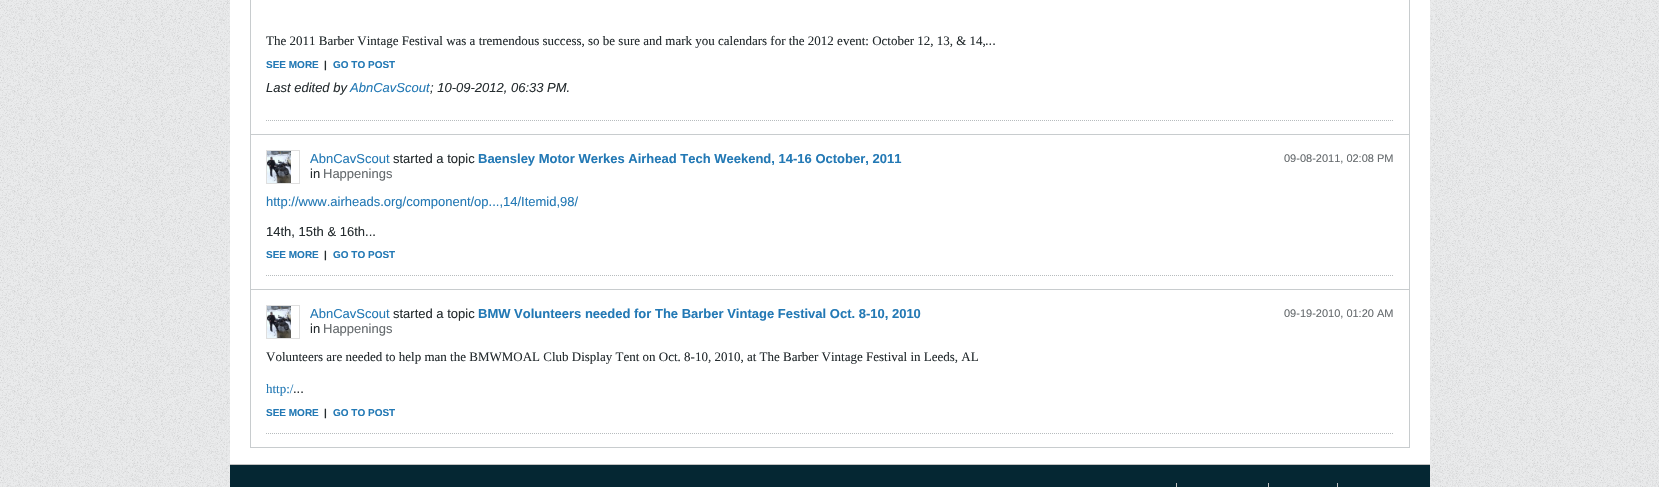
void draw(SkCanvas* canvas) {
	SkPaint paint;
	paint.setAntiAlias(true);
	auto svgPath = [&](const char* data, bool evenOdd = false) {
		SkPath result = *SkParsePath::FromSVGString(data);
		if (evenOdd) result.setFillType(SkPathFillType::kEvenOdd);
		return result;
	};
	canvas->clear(0xffeaebec);
	canvas->drawImageRect(SkImages::DeferredFromEncodedData(SkData::MakeFromFileName("img1.png")), SkRect::MakeXYWH(0, 0, 1659, 487), SkSamplingOptions());
	paint.setColor(0xffffffff);
	canvas->drawRect(SkRect::MakeXYWH(230, 0, 1200, 464), paint);
	paint.setStroke(true);
	paint.setStrokeWidth(1);
	paint.setColor(0xffc8ccce);
	canvas->drawRect(SkRect::MakeXYWH(250.5, -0.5, 1159, 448), paint);
	SkFont f1(fontMgr->matchFamilyStyle("Liberation Serif", SkFontStyle::Normal()), 13);
	f1.setSubpixel(true);
	paint.setStroke(false);
	paint.setColor(0xff252c2f);
	canvas->drawString("The 2011 Barber Vintage Festival was a tremendous success, so be sure and mark you calendars for the 2012 event: October 12, 13, & 14,", 266, 45, f1, paint);
	SkFont f2(fontMgr->matchFamilyStyle("Liberation Sans", SkFontStyle::Normal()), 13);
	f2.setSubpixel(true);
	canvas->drawString("...", 985, 45, f2, paint);
	SkFont f3(fontMgr->matchFamilyStyle("Liberation Sans", SkFontStyle::Bold()), 10);
	f3.setSubpixel(true);
	paint.setColor(0xff2379b5);
	canvas->drawString("SEE MORE", 266, 68, f3, paint);
	paint.setColor(0xff252c2f);
	canvas->drawString("|", 324, 68, f3, paint);
	paint.setColor(0xff2379b5);
	canvas->drawString("GO TO POST", 333, 68, f3, paint);
	SkFont f4(fontMgr->matchFamilyStyle("Liberation Sans", SkFontStyle::Italic()), 13);
	f4.setSubpixel(true);
	paint.setColor(0xff252c2f);
	canvas->drawString("Last edited by", 266, 92, f4, paint);
	paint.setColor(0xff2379b5);
	canvas->drawString("AbnCavScout", 350, 92, f4, paint);
	paint.setColor(0xff252c2f);
	canvas->drawString("; 10-09-2012, 06:33 PM.", 430, 92, f4, paint);
	paint.setStroke(true);
	paint.setColor(0xffb7bcbe);
	paint.setPathEffect(SkDashPathEffect::Make({{1, 1}}, 0));
	canvas->drawPath(svgPath("M266 120.5H1394"), paint);
	paint.setPathEffect(nullptr);
	paint.setStroke(false);
	paint.setColor(0xffc8ccce);
	canvas->drawRect(SkRect::MakeXYWH(251, 134, 1158, 1), paint);
	paint.setStroke(true);
	paint.setColor(0xffdfdfdf);
	canvas->drawRect(SkRect::MakeXYWH(266.5, 150.5, 33, 33), paint);
	canvas->drawImageRect(SkImages::DeferredFromEncodedData(SkData::MakeFromFileName("img2.png")), SkRect::MakeXYWH(267, 151, 24, 32), SkSamplingOptions());
	paint.setStroke(false);
	paint.setColor(0xff2379b5);
	canvas->drawString("AbnCavScout", 310, 163, f2, paint);
	paint.setColor(0xff252c2f);
	canvas->drawString("started a topic", 393, 163, f2, paint);
	SkFont f5(fontMgr->matchFamilyStyle("Liberation Sans", SkFontStyle::Bold()), 13);
	f5.setSubpixel(true);
	paint.setColor(0xff2379b5);
	canvas->drawString("Baensley Motor Werkes Airhead Tech Weekend, 14-16 October, 2011", 478, 163, f5, paint);
	paint.setColor(0xff252c2f);
	canvas->drawString("in", 310, 178, f2, paint);
	paint.setColor(0xff656a6d);
	canvas->drawString("Happenings", 323, 178, f2, paint);
	SkFont f6(fontMgr->matchFamilyStyle("Liberation Sans", SkFontStyle::Normal()), 11);
	f6.setSubpixel(true);
	canvas->drawString("09-08-2011, 02:08 PM", 1284, 162, f6, paint);
	paint.setColor(0xff2379b5);
	canvas->drawString("http://www.airheads.org/component/op...,14/Itemid,98/", 266, 206, f2, paint);
	paint.setColor(0xff252c2f);
	canvas->drawString("14th, 15th & 16th...", 266, 236, f2, paint);
	paint.setColor(0xff2379b5);
	canvas->drawString("SEE MORE", 266, 258, f3, paint);
	paint.setColor(0xff252c2f);
	canvas->drawString("|", 324, 258, f3, paint);
	paint.setColor(0xff2379b5);
	canvas->drawString("GO TO POST", 333, 258, f3, paint);
	paint.setStroke(true);
	paint.setColor(0xffb7bcbe);
	paint.setPathEffect(SkDashPathEffect::Make({{1, 1}}, 0));
	canvas->drawPath(svgPath("M266 275.5H1394"), paint);
	paint.setPathEffect(nullptr);
	paint.setStroke(false);
	paint.setColor(0xffc8ccce);
	canvas->drawRect(SkRect::MakeXYWH(251, 289, 1158, 1), paint);
	paint.setStroke(true);
	paint.setColor(0xffdfdfdf);
	canvas->drawRect(SkRect::MakeXYWH(266.5, 305.5, 33, 33), paint);
	canvas->drawImageRect(SkImages::DeferredFromEncodedData(SkData::MakeFromFileName("img2.png")), SkRect::MakeXYWH(267, 306, 24, 32), SkSamplingOptions());
	paint.setStroke(false);
	paint.setColor(0xff2379b5);
	canvas->drawString("AbnCavScout", 310, 318, f2, paint);
	paint.setColor(0xff252c2f);
	canvas->drawString("started a topic", 393, 318, f2, paint);
	paint.setColor(0xff2379b5);
	canvas->drawString("BMW Volunteers needed for The Barber Vintage Festival Oct. 8-10, 2010", 478, 318, f5, paint);
	paint.setColor(0xff252c2f);
	canvas->drawString("in", 310, 333, f2, paint);
	paint.setColor(0xff656a6d);
	canvas->drawString("Happenings", 323, 333, f2, paint);
	canvas->drawString("09-19-2010, 01:20 AM", 1284, 317, f6, paint);
	paint.setColor(0xff252c2f);
	canvas->drawString("Volunteers are needed to help man the BMWMOAL Club Display Tent on Oct. 8-10, 2010, at The Barber Vintage Festival in Leeds, AL", 266, 361, f1, paint);
	paint.setColor(0xff2379b5);
	canvas->drawString("http:/", 266, 393, f1, paint);
	paint.setColor(0xff252c2f);
	canvas->drawString("...", 293, 393, f2, paint);
	paint.setColor(0xff2379b5);
	canvas->drawString("SEE MORE", 266, 416, f3, paint);
	paint.setColor(0xff252c2f);
	canvas->drawString("|", 324, 416, f3, paint);
	paint.setColor(0xff2379b5);
	canvas->drawString("GO TO POST", 333, 416, f3, paint);
	paint.setStroke(true);
	paint.setColor(0xffb7bcbe);
	paint.setPathEffect(SkDashPathEffect::Make({{1, 1}}, 0));
	canvas->drawPath(svgPath("M266 433.5H1394"), paint);
	paint.setPathEffect(nullptr);
	paint.setStroke(false);
	paint.setColor(0xff052733);
	canvas->drawRect(SkRect::MakeXYWH(230, 465, 1200, 22), paint);
	paint.setColor(0xffc2c2c2);
	canvas->drawRect(SkRect::MakeXYWH(230, 464, 1200, 1), paint);
	canvas->drawRect(SkRect::MakeXYWH(1176, 483, 1, 4), paint);
	canvas->drawRect(SkRect::MakeXYWH(1268, 483, 1, 4), paint);
	canvas->drawRect(SkRect::MakeXYWH(1337, 483, 1, 4), paint);
}
